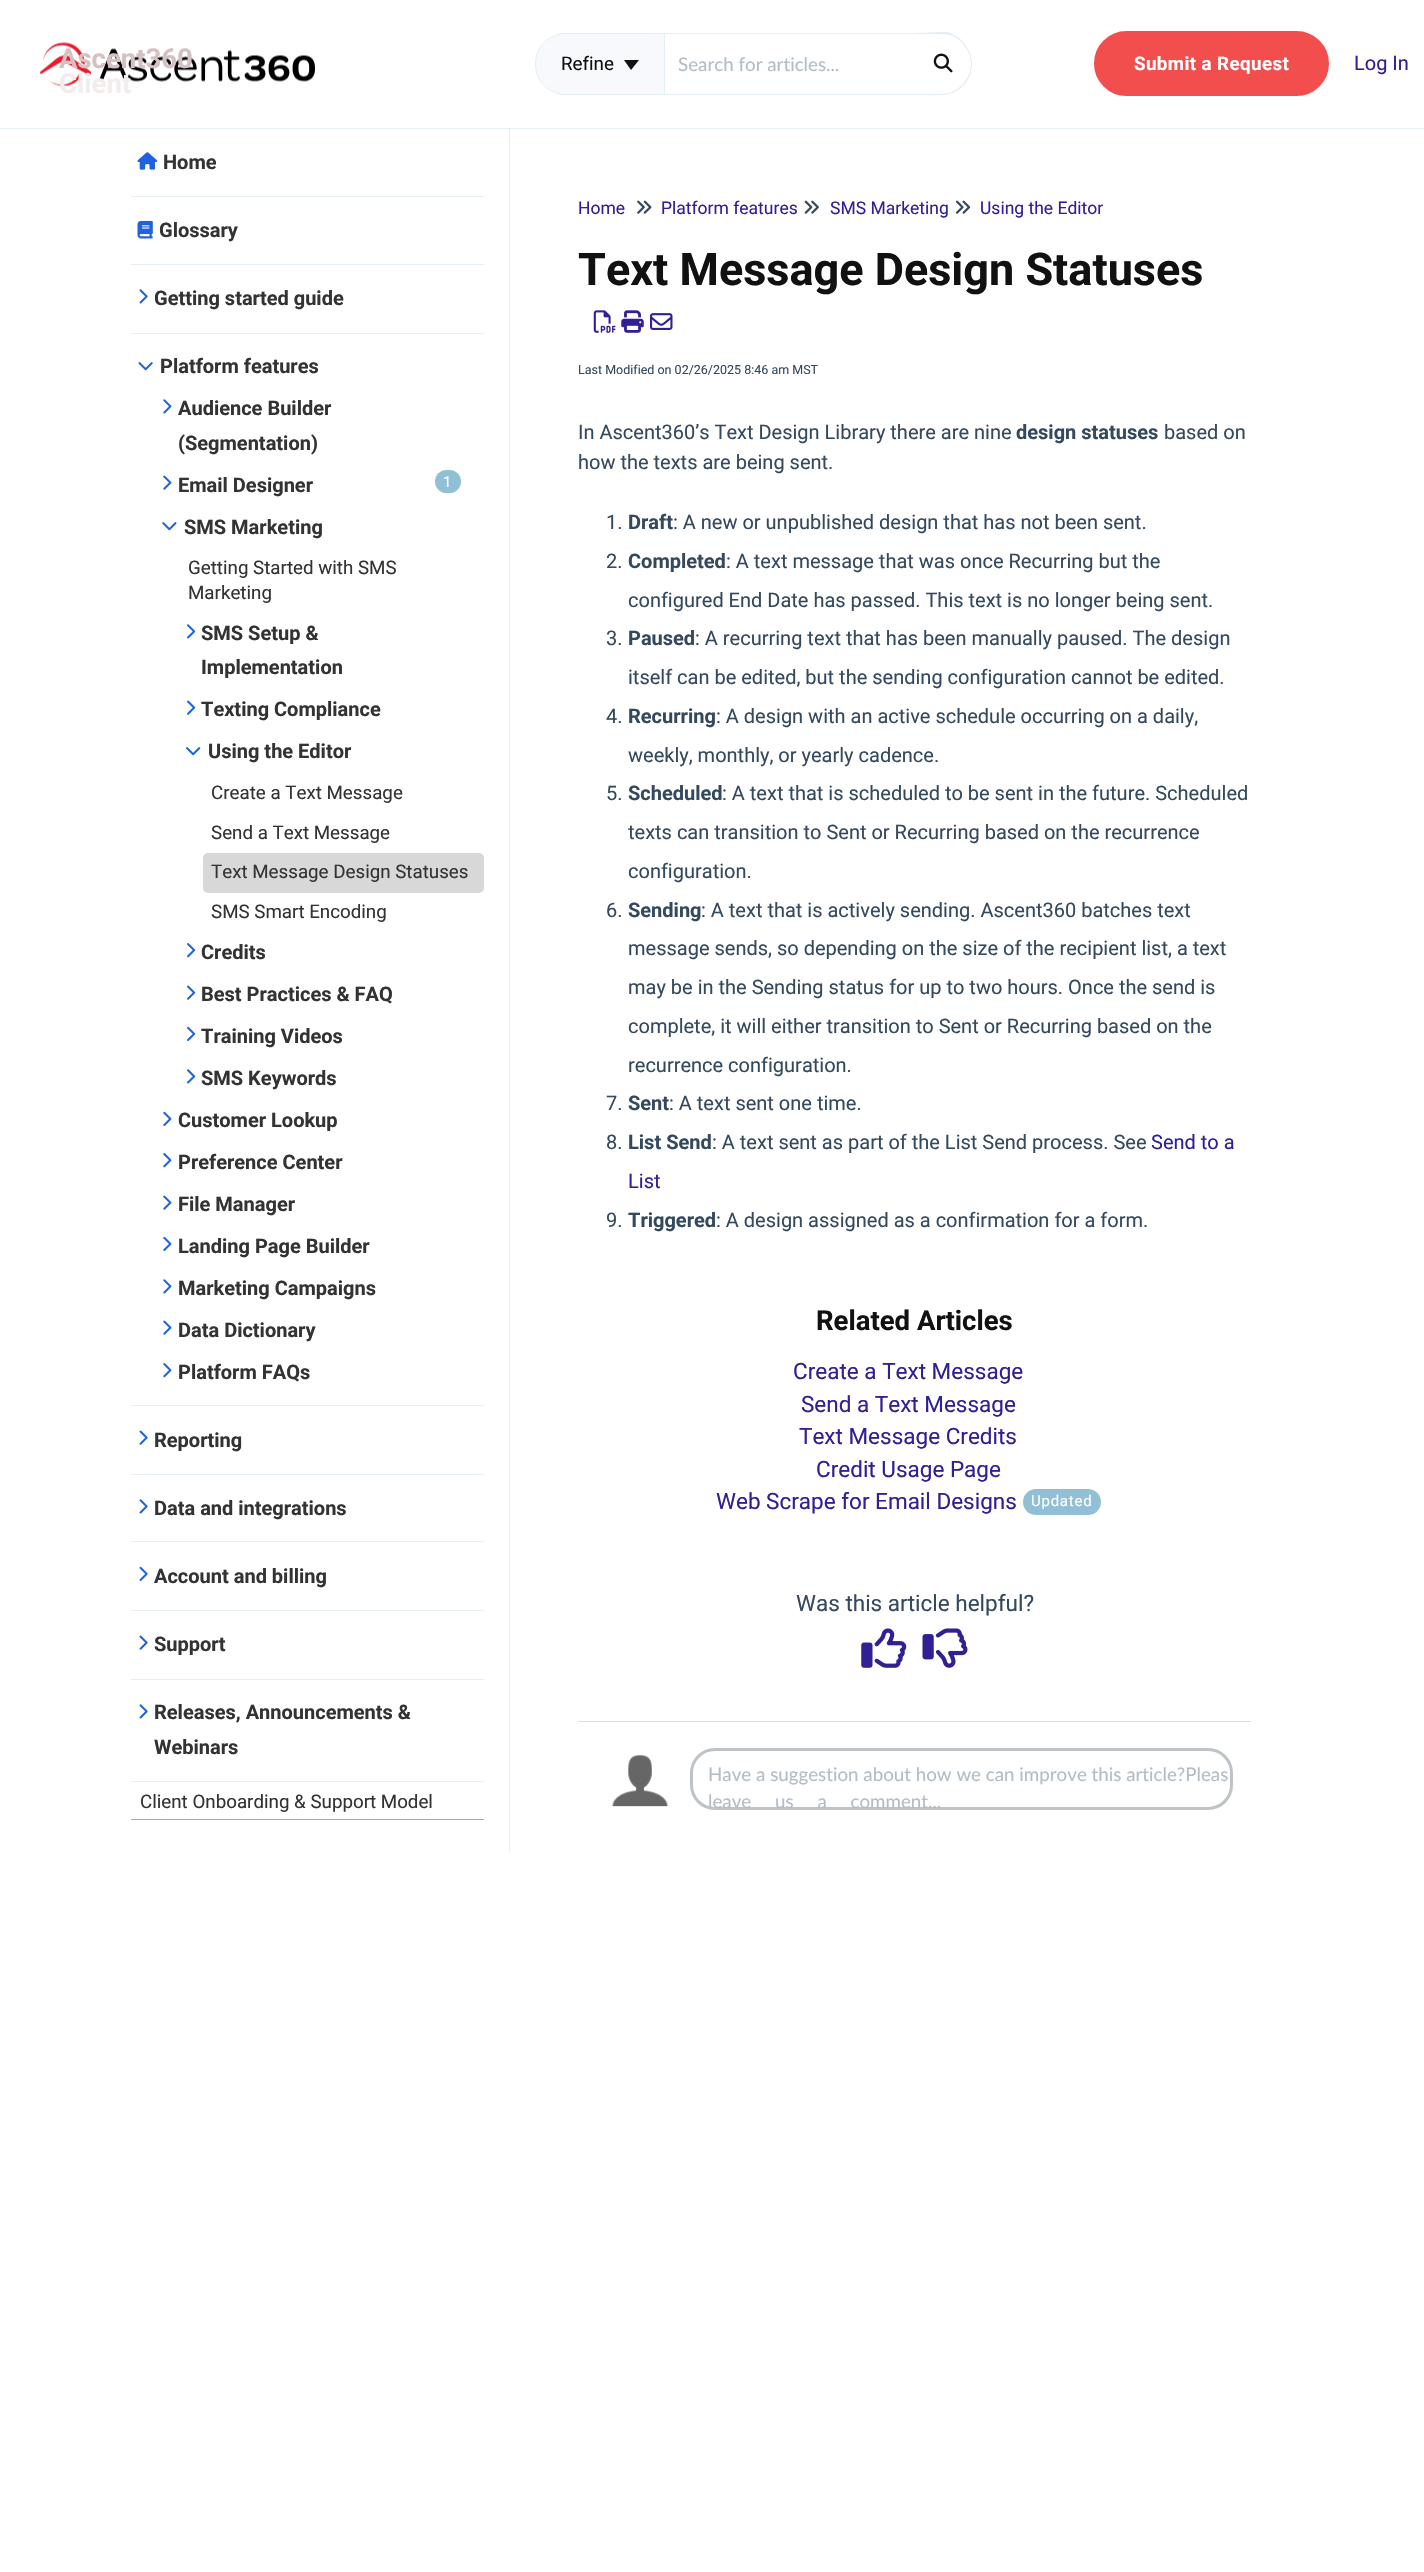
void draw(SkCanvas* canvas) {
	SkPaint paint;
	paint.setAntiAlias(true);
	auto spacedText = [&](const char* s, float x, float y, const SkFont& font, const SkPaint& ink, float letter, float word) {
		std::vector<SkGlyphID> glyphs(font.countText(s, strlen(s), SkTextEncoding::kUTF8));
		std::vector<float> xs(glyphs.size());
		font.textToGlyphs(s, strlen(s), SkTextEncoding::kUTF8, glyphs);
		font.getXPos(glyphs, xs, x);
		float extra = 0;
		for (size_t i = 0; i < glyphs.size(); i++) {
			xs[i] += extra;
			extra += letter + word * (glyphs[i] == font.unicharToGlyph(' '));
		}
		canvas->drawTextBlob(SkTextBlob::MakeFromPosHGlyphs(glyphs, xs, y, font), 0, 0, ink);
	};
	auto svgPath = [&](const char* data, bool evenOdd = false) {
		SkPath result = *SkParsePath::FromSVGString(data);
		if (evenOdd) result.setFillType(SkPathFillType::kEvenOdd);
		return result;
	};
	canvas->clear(0xffffffff);
	paint.setColor(0xffe5f0f4);
	canvas->drawRect(SkRect::MakeXYWH(0, 128, 1424, 1), paint);
	canvas->drawImageRect(SkImages::DeferredFromEncodedData(SkData::MakeFromFileName("img1.png")), SkRect::MakeXYWH(40, 42, 275, 45), SkSamplingOptions());
	SkFont f1(fontMgr->matchFamilyStyle("Roboto", SkFontStyle::Bold()), 27.5);
	f1.setSubpixel(true);
	paint.setColor(0xffd5c0c2);
	canvas->drawString("Ascent360", 59, 68, f1, paint);
	paint.setColor(0xfff3eced);
	canvas->drawString("Client", 59, 93, f1, paint);
	paint.setStroke(true);
	paint.setStrokeWidth(1);
	paint.setColor(0xffe2eef3);
	canvas->drawRect(SkRect::MakeXYWH(661.5, 33.5, 256, 61), paint);
	paint.setStroke(false);
	paint.setColor(0xfff8f9fc);
	canvas->drawPath(svgPath("M566 33.5H664.5V94.5H566C549 94.5 535.5 81 535.5 64C535.5 47 549 33.5 566 33.5Z"), paint);
	paint.setStroke(true);
	paint.setColor(0xffe2eef3);
	canvas->drawPath(svgPath("M566 33.5H664.5V94.5H566C549 94.5 535.5 81 535.5 64C535.5 47 549 33.5 566 33.5Z"), paint);
	SkFont f2(fontMgr->matchFamilyStyle("Roboto", SkFontStyle::Normal()), 18.75);
	f2.setSubpixel(true);
	paint.setStroke(false);
	paint.setColor(0xff111111);
	canvas->drawString("Refine", 561, 70, f2, paint);
	canvas->drawPath(svgPath("M624 60H639L631 70Z"), paint);
	SkFont f3(fontMgr->matchFamilyStyle("Lato", SkFontStyle::Normal()), 18.75);
	f3.setSubpixel(true);
	paint.setColor(0xffb2bcc5);
	canvas->drawString("Search for articles...", 678, 71, f3, paint);
	paint.setColor(0xffffffff);
	canvas->drawPath(svgPath("M914 33H942C959 33 973 47 973 64C973 81 959 95 942 95H914Z"), paint);
	paint.setColor(0xffe2eef3);
	canvas->drawPath(svgPath("M914 33L947 32C953 34 959 37 963 42L962 43C957 37 950 34 941 34H915Z"), paint);
	canvas->drawPath(svgPath("M963 42C975 54 975 74 963 86L962 85C974 73 974 54 962 43Z"), paint);
	canvas->drawPath(svgPath("M914 95H941C950 95 958 91 963 86L962 85C957 90 950 94 941 94H915Z"), paint);
	paint.setColor(0xffffffff);
	canvas->drawPath(svgPath("M915 34V94L914 95V33Z"), paint);
	canvas->drawImageRect(SkImages::DeferredFromEncodedData(SkData::MakeFromFileName("img2.png")), SkRect::MakeXYWH(933, 53, 20, 20), SkSamplingOptions());
	paint.setColor(0xfff34e4e);
	canvas->drawRoundRect(SkRect::MakeXYWH(1095.5, 32.5, 232, 62), 31, 31, paint);
	paint.setStroke(true);
	paint.setStrokeWidth(3);
	canvas->drawRoundRect(SkRect::MakeXYWH(1095.5, 32.5, 232, 62), 31, 31, paint);
	SkFont f4(fontMgr->matchFamilyStyle("Roboto", SkFontStyle::Bold()), 18.75);
	f4.setSubpixel(true);
	paint.setStroke(false);
	paint.setColor(0xffffffff);
	spacedText("Submit a Request", 1134, 70, f4, paint, 0.4, 0);
	SkFont f5(fontMgr->matchFamilyStyle("Roboto", SkFontStyle::Normal()), 20);
	f5.setSubpixel(true);
	paint.setColor(0xff2f2093);
	canvas->drawString("Log In", 1354, 70, f5, paint);
	paint.setColor(0xffe5f0f4);
	canvas->drawRect(SkRect::MakeXYWH(509, 129, 1, 1722), paint);
	paint.setColor(0xffe5eef4);
	canvas->drawRect(SkRect::MakeXYWH(131, 196, 353, 1), paint);
	canvas->drawImageRect(SkImages::DeferredFromEncodedData(SkData::MakeFromFileName("img3.png")), SkRect::MakeXYWH(137, 152, 21, 18), SkSamplingOptions());
	SkFont f6(fontMgr->matchFamilyStyle("Roboto", SkFontStyle::Bold()), 20);
	f6.setSubpixel(true);
	paint.setColor(0xff333333);
	canvas->drawString("Home", 163, 169, f6, paint);
	paint.setColor(0xffe5eef4);
	canvas->drawRect(SkRect::MakeXYWH(131, 264, 353, 1), paint);
	canvas->drawImageRect(SkImages::DeferredFromEncodedData(SkData::MakeFromFileName("img4.png")), SkRect::MakeXYWH(137, 220, 16, 19), SkSamplingOptions());
	paint.setColor(0xff333333);
	canvas->drawString("Glossary", 159, 237, f6, paint);
	paint.setColor(0xffe5eef4);
	canvas->drawRect(SkRect::MakeXYWH(131, 333, 353, 1), paint);
	canvas->drawImageRect(SkImages::DeferredFromEncodedData(SkData::MakeFromFileName("img5.png")), SkRect::MakeXYWH(139, 289, 9, 15), SkSamplingOptions());
	paint.setColor(0xff333333);
	canvas->drawString("Getting started guide", 154, 305, f6, paint);
	paint.setColor(0xffe5eef4);
	canvas->drawRect(SkRect::MakeXYWH(131, 1405, 353, 1), paint);
	canvas->drawImageRect(SkImages::DeferredFromEncodedData(SkData::MakeFromFileName("img6.png")), SkRect::MakeXYWH(138, 362, 15, 9), SkSamplingOptions());
	paint.setColor(0xff333333);
	canvas->drawString("Platform features", 160, 373, f6, paint);
	canvas->drawImageRect(SkImages::DeferredFromEncodedData(SkData::MakeFromFileName("img7.png")), SkRect::MakeXYWH(163, 399, 9, 15), SkSamplingOptions());
	canvas->drawString("Audience Builder", 178, 415, f6, paint);
	canvas->drawString("(Segmentation)", 178, 450, f6, paint);
	canvas->drawImageRect(SkImages::DeferredFromEncodedData(SkData::MakeFromFileName("img8.png")), SkRect::MakeXYWH(163, 475, 9, 15), SkSamplingOptions());
	canvas->drawString("Email Designer", 178, 492, f6, paint);
	paint.setColor(0xff91c0d6);
	canvas->drawRoundRect(SkRect::MakeXYWH(435, 470, 26, 23), 11.5, 11.5, paint);
	SkFont f7(fontMgr->matchFamilyStyle("Roboto", SkFontStyle::Normal()), 15);
	f7.setSubpixel(true);
	paint.setColor(0xffffffff);
	spacedText("1", 443, 487, f7, paint, 0.75, 0);
	canvas->drawImageRect(SkImages::DeferredFromEncodedData(SkData::MakeFromFileName("img9.png")), SkRect::MakeXYWH(162, 522, 15, 9), SkSamplingOptions());
	paint.setColor(0xff333333);
	canvas->drawString("SMS Marketing", 184, 534, f6, paint);
	canvas->drawString("Getting Started with SMS", 188, 574, f2, paint);
	canvas->drawString("Marketing", 188, 599, f2, paint);
	canvas->drawImageRect(SkImages::DeferredFromEncodedData(SkData::MakeFromFileName("img10.png")), SkRect::MakeXYWH(187, 624, 9, 15), SkSamplingOptions());
	canvas->drawString("SMS Setup &", 201, 640, f6, paint);
	canvas->drawString("Implementation", 201, 674, f6, paint);
	canvas->drawImageRect(SkImages::DeferredFromEncodedData(SkData::MakeFromFileName("img11.png")), SkRect::MakeXYWH(187, 700, 9, 15), SkSamplingOptions());
	canvas->drawString("Texting Compliance", 201, 716, f6, paint);
	canvas->drawImageRect(SkImages::DeferredFromEncodedData(SkData::MakeFromFileName("img12.png")), SkRect::MakeXYWH(186, 747, 15, 9), SkSamplingOptions());
	canvas->drawString("Using the Editor", 208, 758, f6, paint);
	canvas->drawString("Create a Text Message", 211, 799, f2, paint);
	canvas->drawString("Send a Text Message", 211, 839, f2, paint);
	paint.setColor(0xffd8d8d8);
	canvas->drawRoundRect(SkRect::MakeXYWH(203, 853, 281, 40), 5, 5, paint);
	paint.setColor(0xff333333);
	canvas->drawString("Text Message Design Statuses", 211, 878, f2, paint);
	canvas->drawString("SMS Smart Encoding", 211, 918, f2, paint);
	canvas->drawImageRect(SkImages::DeferredFromEncodedData(SkData::MakeFromFileName("img13.png")), SkRect::MakeXYWH(187, 943, 9, 15), SkSamplingOptions());
	canvas->drawString("Credits", 201, 959, f6, paint);
	canvas->drawImageRect(SkImages::DeferredFromEncodedData(SkData::MakeFromFileName("img11.png")), SkRect::MakeXYWH(187, 985, 9, 15), SkSamplingOptions());
	canvas->drawString("Best Practices & FAQ", 201, 1001, f6, paint);
	canvas->drawImageRect(SkImages::DeferredFromEncodedData(SkData::MakeFromFileName("img14.png")), SkRect::MakeXYWH(187, 1026, 9, 15), SkSamplingOptions());
	canvas->drawString("Training Videos", 201, 1043, f6, paint);
	canvas->drawImageRect(SkImages::DeferredFromEncodedData(SkData::MakeFromFileName("img10.png")), SkRect::MakeXYWH(187, 1069, 9, 15), SkSamplingOptions());
	canvas->drawString("SMS Keywords", 201, 1085, f6, paint);
	canvas->drawImageRect(SkImages::DeferredFromEncodedData(SkData::MakeFromFileName("img15.png")), SkRect::MakeXYWH(163, 1111, 9, 15), SkSamplingOptions());
	canvas->drawString("Customer Lookup", 178, 1127, f6, paint);
	canvas->drawImageRect(SkImages::DeferredFromEncodedData(SkData::MakeFromFileName("img16.png")), SkRect::MakeXYWH(163, 1153, 9, 15), SkSamplingOptions());
	canvas->drawString("Preference Center", 178, 1169, f6, paint);
	canvas->drawImageRect(SkImages::DeferredFromEncodedData(SkData::MakeFromFileName("img8.png")), SkRect::MakeXYWH(163, 1195, 9, 15), SkSamplingOptions());
	canvas->drawString("File Manager", 178, 1211, f6, paint);
	canvas->drawImageRect(SkImages::DeferredFromEncodedData(SkData::MakeFromFileName("img15.png")), SkRect::MakeXYWH(163, 1236, 9, 15), SkSamplingOptions());
	canvas->drawString("Landing Page Builder", 178, 1253, f6, paint);
	canvas->drawImageRect(SkImages::DeferredFromEncodedData(SkData::MakeFromFileName("img7.png")), SkRect::MakeXYWH(163, 1279, 9, 15), SkSamplingOptions());
	canvas->drawString("Marketing Campaigns", 178, 1295, f6, paint);
	canvas->drawImageRect(SkImages::DeferredFromEncodedData(SkData::MakeFromFileName("img8.png")), SkRect::MakeXYWH(163, 1320, 9, 15), SkSamplingOptions());
	canvas->drawString("Data Dictionary", 178, 1337, f6, paint);
	canvas->drawImageRect(SkImages::DeferredFromEncodedData(SkData::MakeFromFileName("img16.png")), SkRect::MakeXYWH(163, 1363, 9, 15), SkSamplingOptions());
	canvas->drawString("Platform FAQs", 178, 1379, f6, paint);
	paint.setColor(0xffe5eef4);
	canvas->drawRect(SkRect::MakeXYWH(131, 1474, 353, 1), paint);
	canvas->drawImageRect(SkImages::DeferredFromEncodedData(SkData::MakeFromFileName("img17.png")), SkRect::MakeXYWH(139, 1430, 9, 15), SkSamplingOptions());
	paint.setColor(0xff333333);
	canvas->drawString("Reporting", 154, 1447, f6, paint);
	paint.setColor(0xffe5eef4);
	canvas->drawRect(SkRect::MakeXYWH(131, 1541, 353, 1), paint);
	canvas->drawImageRect(SkImages::DeferredFromEncodedData(SkData::MakeFromFileName("img5.png")), SkRect::MakeXYWH(139, 1499, 9, 15), SkSamplingOptions());
	paint.setColor(0xff333333);
	canvas->drawString("Data and integrations", 154, 1515, f6, paint);
	paint.setColor(0xffe5eef4);
	canvas->drawRect(SkRect::MakeXYWH(131, 1610, 353, 1), paint);
	canvas->drawImageRect(SkImages::DeferredFromEncodedData(SkData::MakeFromFileName("img18.png")), SkRect::MakeXYWH(139, 1566, 9, 15), SkSamplingOptions());
	paint.setColor(0xff333333);
	canvas->drawString("Account and billing", 154, 1583, f6, paint);
	paint.setColor(0xffe5eef4);
	canvas->drawRect(SkRect::MakeXYWH(131, 1679, 353, 1), paint);
	canvas->drawImageRect(SkImages::DeferredFromEncodedData(SkData::MakeFromFileName("img17.png")), SkRect::MakeXYWH(139, 1635, 9, 15), SkSamplingOptions());
	paint.setColor(0xff333333);
	canvas->drawString("Support", 154, 1651, f6, paint);
	paint.setColor(0xffe5eef4);
	canvas->drawRect(SkRect::MakeXYWH(131, 1781, 353, 1), paint);
	canvas->drawImageRect(SkImages::DeferredFromEncodedData(SkData::MakeFromFileName("img5.png")), SkRect::MakeXYWH(139, 1704, 9, 15), SkSamplingOptions());
	paint.setColor(0xff333333);
	canvas->drawString("Releases, Announcements &", 154, 1719, f6, paint);
	canvas->drawString("Webinars", 154, 1754, f6, paint);
	paint.setColor(0xffa5a7ac);
	canvas->drawRect(SkRect::MakeXYWH(131, 1819, 353, 1), paint);
	paint.setColor(0xff333333);
	canvas->drawString("Client Onboarding & Support Model", 140, 1808, f2, paint);
	SkFont f8(fontMgr->matchFamilyStyle("Roboto", SkFontStyle::Normal()), 17.5);
	f8.setSubpixel(true);
	paint.setColor(0xff2f2093);
	canvas->drawString("Home", 578, 214, f8, paint);
	canvas->drawImageRect(SkImages::DeferredFromEncodedData(SkData::MakeFromFileName("img19.png")), SkRect::MakeXYWH(637, 200, 15, 14), SkSamplingOptions());
	canvas->drawString("Platform features", 661, 214, f8, paint);
	canvas->drawImageRect(SkImages::DeferredFromEncodedData(SkData::MakeFromFileName("img20.png")), SkRect::MakeXYWH(804, 200, 15, 14), SkSamplingOptions());
	canvas->drawString("SMS Marketing", 830, 214, f8, paint);
	canvas->drawImageRect(SkImages::DeferredFromEncodedData(SkData::MakeFromFileName("img21.png")), SkRect::MakeXYWH(955, 200, 16, 14), SkSamplingOptions());
	canvas->drawString("Using the Editor", 980, 214, f8, paint);
	SkFont f9(fontMgr->matchFamilyStyle("Roboto", SkFontStyle::Bold()), 45);
	f9.setSubpixel(true);
	paint.setColor(0xff111111);
	canvas->drawString("Text Message Design Statuses", 578, 285, f9, paint);
	canvas->drawImageRect(SkImages::DeferredFromEncodedData(SkData::MakeFromFileName("img22.png")), SkRect::MakeXYWH(593, 310, 23, 23), SkSamplingOptions());
	canvas->drawImageRect(SkImages::DeferredFromEncodedData(SkData::MakeFromFileName("img23.png")), SkRect::MakeXYWH(621, 310, 23, 23), SkSamplingOptions());
	canvas->drawImageRect(SkImages::DeferredFromEncodedData(SkData::MakeFromFileName("img24.png")), SkRect::MakeXYWH(650, 313, 23, 17), SkSamplingOptions());
	SkFont f10(fontMgr->matchFamilyStyle("Roboto", SkFontStyle::Normal()), 12.5);
	f10.setSubpixel(true);
	paint.setColor(0xff34495e);
	canvas->drawString("Last Modified on 02/26/2025 8:46 am MST", 578, 374, f10, paint);
	canvas->drawString("In Ascent360’s Text Design Library there are nine", 578, 439, f5, paint);
	canvas->drawString("design statuses", 1016, 439, f6, paint);
	canvas->drawString("based on", 1164, 439, f5, paint);
	canvas->drawString("how the texts are being sent.", 578, 469, f5, paint);
	canvas->drawString("1.", 606, 529, f5, paint);
	canvas->drawString("Draft", 628, 529, f6, paint);
	canvas->drawString(": A new or unpublished design that has not been sent.", 673, 529, f5, paint);
	canvas->drawString("2.", 606, 568, f5, paint);
	canvas->drawString("Completed", 628, 568, f6, paint);
	canvas->drawString(": A text message that was once Recurring but the", 726, 568, f5, paint);
	canvas->drawString("configured End Date has passed. This text is no longer being sent.", 628, 607, f5, paint);
	canvas->drawString("3.", 606, 645, f5, paint);
	canvas->drawString("Paused", 628, 645, f6, paint);
	canvas->drawString(": A recurring text that has been manually paused. The design", 695, 645, f5, paint);
	canvas->drawString("itself can be edited, but the sending configuration cannot be edited.", 628, 684, f5, paint);
	canvas->drawString("4.", 606, 723, f5, paint);
	canvas->drawString("Recurring", 628, 723, f6, paint);
	canvas->drawString(": A design with an active schedule occurring on a daily,", 716, 723, f5, paint);
	canvas->drawString("weekly, monthly, or yearly cadence.", 628, 762, f5, paint);
	canvas->drawString("5.", 606, 800, f5, paint);
	canvas->drawString("Scheduled", 628, 800, f6, paint);
	canvas->drawString(": A text that is scheduled to be sent in the future. Scheduled", 722, 800, f5, paint);
	canvas->drawString("texts can transition to Sent or Recurring based on the recurrence", 628, 839, f5, paint);
	canvas->drawString("configuration.", 628, 878, f5, paint);
	canvas->drawString("6.", 606, 917, f5, paint);
	canvas->drawString("Sending", 628, 917, f6, paint);
	canvas->drawString(": A text that is actively sending. Ascent360 batches text", 701, 917, f5, paint);
	canvas->drawString("message sends, so depending on the size of the recipient list, a text", 628, 955, f5, paint);
	canvas->drawString("may be in the Sending status for up to two hours. Once the send is", 628, 994, f5, paint);
	canvas->drawString("complete, it will either transition to Sent or Recurring based on the", 628, 1033, f5, paint);
	canvas->drawString("recurrence configuration.", 628, 1072, f5, paint);
	canvas->drawString("7.", 606, 1110, f5, paint);
	canvas->drawString("Sent", 628, 1110, f6, paint);
	canvas->drawString(": A text sent one time.", 669, 1110, f5, paint);
	canvas->drawString("8.", 606, 1149, f5, paint);
	canvas->drawString("List Send", 628, 1149, f6, paint);
	canvas->drawString(": A text sent as part of the List Send process. See", 712, 1149, f5, paint);
	paint.setColor(0xff2f2093);
	canvas->drawString("Send to a", 1151, 1149, f5, paint);
	canvas->drawString("List", 628, 1188, f5, paint);
	paint.setColor(0xff34495e);
	canvas->drawString("9.", 606, 1227, f5, paint);
	canvas->drawString("Triggered", 628, 1227, f6, paint);
	canvas->drawString(": A design assigned as a confirmation for a form.", 716, 1227, f5, paint);
	paint.setColor(0xff111111);
	canvas->drawString("Related Articles", 816, 1330, f1, paint);
	SkFont f11(fontMgr->matchFamilyStyle("Roboto", SkFontStyle::Normal()), 22.5);
	f11.setSubpixel(true);
	paint.setColor(0xff2f2093);
	canvas->drawString("Create a Text Message", 793, 1379, f11, paint);
	canvas->drawString("Send a Text Message", 801, 1412, f11, paint);
	canvas->drawString("Text Message Credits", 799, 1444, f11, paint);
	canvas->drawString("Credit Usage Page", 816, 1477, f11, paint);
	canvas->drawString("Web Scrape for Email Designs", 716, 1509, f11, paint);
	paint.setColor(0xff91c0d6);
	canvas->drawRoundRect(SkRect::MakeXYWH(1023, 1489, 78, 26), 13, 13, paint);
	paint.setColor(0xffffffff);
	spacedText("Updated", 1031, 1506, f7, paint, 0.75, 0);
	paint.setColor(0xff34495e);
	canvas->drawString("Was this article helpful?", 796, 1611, f11, paint);
	canvas->drawImageRect(SkImages::DeferredFromEncodedData(SkData::MakeFromFileName("img25.png")), SkRect::MakeXYWH(861, 1628, 46, 40), SkSamplingOptions());
	canvas->drawImageRect(SkImages::DeferredFromEncodedData(SkData::MakeFromFileName("img26.png")), SkRect::MakeXYWH(922, 1628, 46, 40), SkSamplingOptions());
	paint.setColor(0xffdddddd);
	canvas->drawRect(SkRect::MakeXYWH(578, 1721, 673, 1), paint);
	canvas->drawImageRect(SkImages::DeferredFromEncodedData(SkData::MakeFromFileName("img27.png")), SkRect::MakeXYWH(612, 1755, 56, 52), SkSamplingOptions());
	paint.setStroke(true);
	paint.setColor(0xffbdc3c7);
	canvas->drawRoundRect(SkRect::MakeXYWH(691.5, 1749.5, 540, 59), 23.5, 23.5, paint);
	paint.setStroke(false);
	paint.setColor(0xffb2bcc5);
	canvas->drawString("Have a suggestion about how we can improve this article?Pleas", 708, 1781, f3, paint);
	canvas->save();
	canvas->clipPath(svgPath("M716 1750H1207C1219.5 1750 1230 1760.5 1230 1773V1785C1230 1797.5 1219.5 1808 1207 1808H716C703.5 1808 693 1797.5 693 1785V1773C693 1760.5 703.5 1750 716 1750Z"), true);
	spacedText("leave us a comment...", 708, 1808, f3, paint, 0, 19);
	canvas->restore();
}
